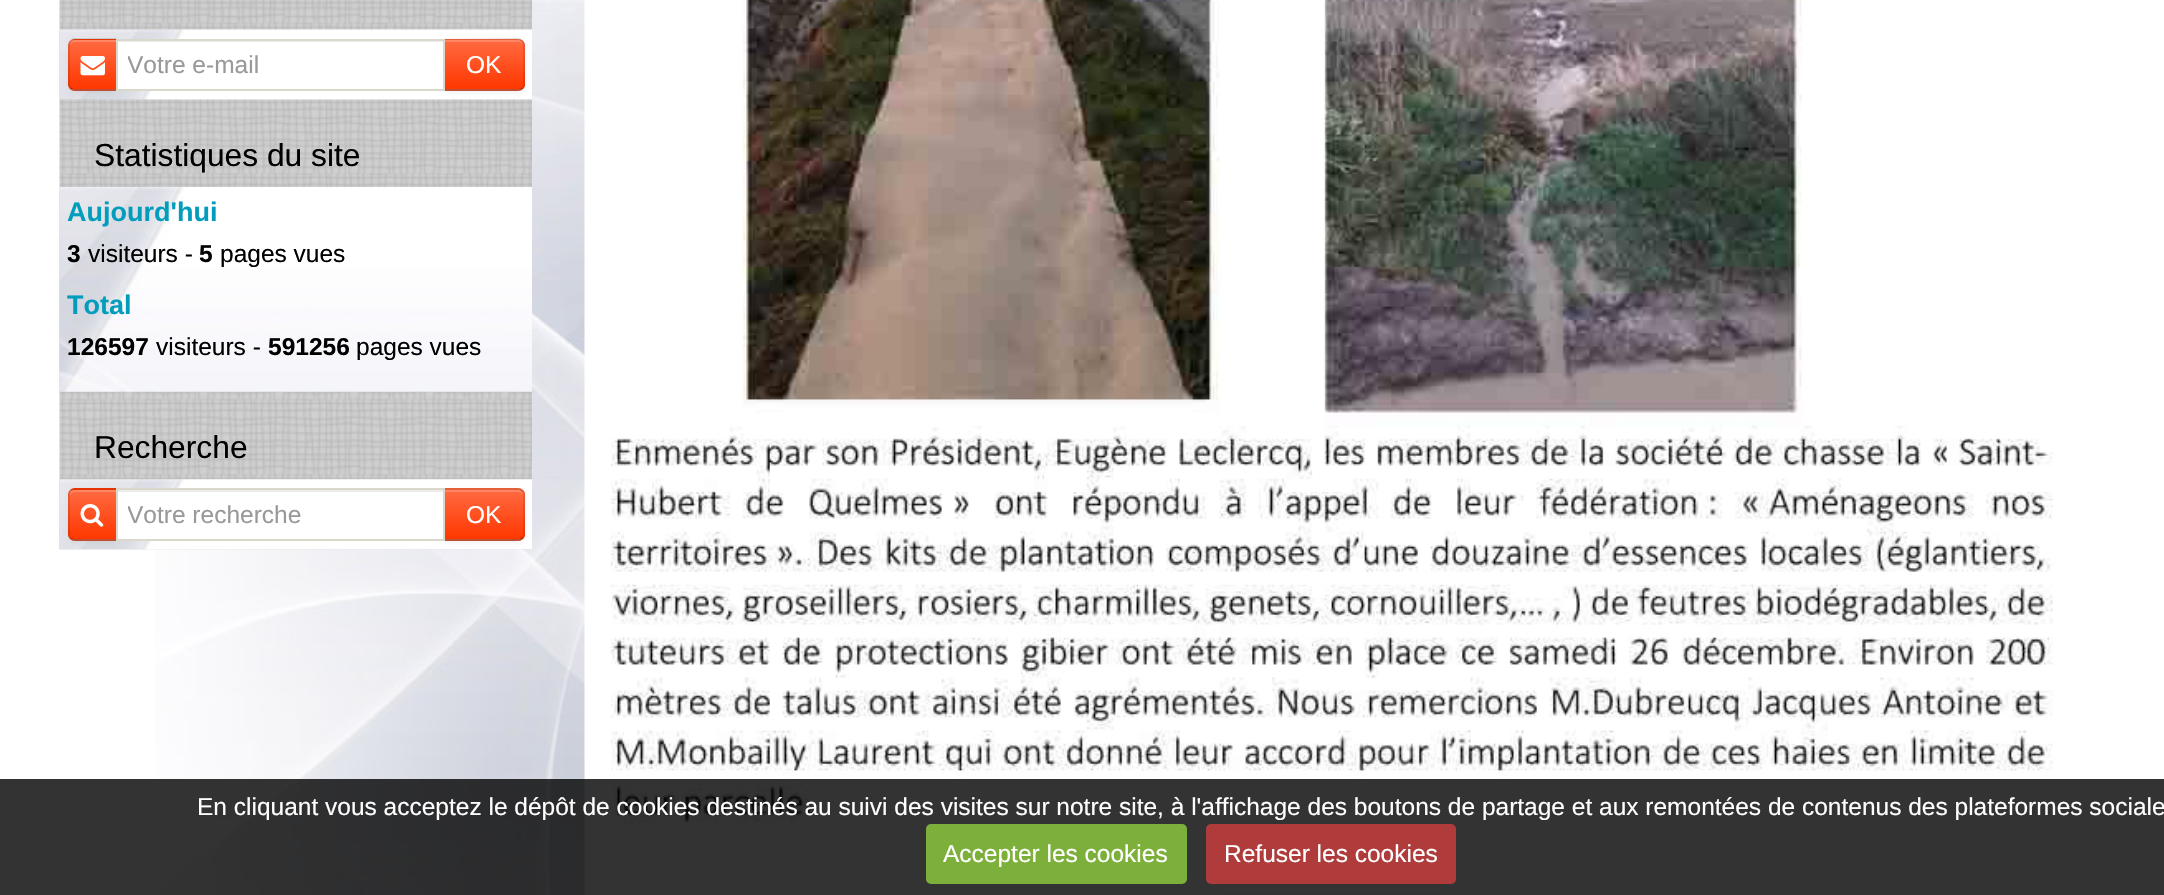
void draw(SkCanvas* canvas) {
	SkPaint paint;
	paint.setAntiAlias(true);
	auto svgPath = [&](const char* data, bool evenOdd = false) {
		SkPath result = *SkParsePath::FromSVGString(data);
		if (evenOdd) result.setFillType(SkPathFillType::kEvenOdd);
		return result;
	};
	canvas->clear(0xffffffff);
	canvas->drawImageRect(SkImages::DeferredFromEncodedData(SkData::MakeFromFileName("img1.png")), SkRect::MakeXYWH(155, 0, 430, 895), SkSamplingOptions());
	canvas->drawImageRect(SkImages::DeferredFromEncodedData(SkData::MakeFromFileName("img2.png")), SkRect::MakeXYWH(59, 0, 473, 550), SkSamplingOptions());
	canvas->drawImageRect(SkImages::DeferredFromEncodedData(SkData::MakeFromFileName("img3.png")), SkRect::MakeXYWH(59, 29, 473, 71), SkSamplingOptions());
	paint.setColor(0x0d000000);
	paint.setMaskFilter(SkMaskFilter::MakeBlur(kNormal_SkBlurStyle, 2));
	canvas->drawRoundRect(SkRect::MakeXYWH(68, 40, 49, 53), 7, 7, paint);
	paint.setMaskFilter(nullptr);
	canvas->save();
	canvas->clipPath(svgPath("M75 39H117V91H75C71 91 68 88 68 84V46C68 42 71 39 75 39Z"), true);
	{
		const SkColor colors[] = {0xffff6a41, 0xffff3700};
		const float stops[] = {0, 1};
		const SkPoint ends[] = {{93, -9}, {93, 40}};
		paint.setShader(SkGradientShader::MakeLinear(ends, colors, stops, 2, SkTileMode::kClamp));
		paint.setAlpha(255);
	}
	canvas->drawRect(SkRect::MakeXYWH(68, 39, 49, 1), paint);
	{
		const SkColor colors[] = {0xffff6a41, 0xffff3700};
		const float stops[] = {0, 1};
		const SkPoint ends[] = {{93, 40}, {93, 89}};
		paint.setShader(SkGradientShader::MakeLinear(ends, colors, stops, 2, SkTileMode::kClamp));
		paint.setAlpha(255);
	}
	canvas->drawRect(SkRect::MakeXYWH(68, 40, 48, 49), paint);
	{
		const SkColor colors[] = {0xffff6a41, 0xffff3700};
		const float stops[] = {0, 1};
		const SkPoint ends[] = {{93, 89}, {93, 138}};
		paint.setShader(SkGradientShader::MakeLinear(ends, colors, stops, 2, SkTileMode::kClamp));
		paint.setAlpha(255);
	}
	canvas->drawRect(SkRect::MakeXYWH(68, 89, 49, 2), paint);
	canvas->restore();
	paint.setShader(nullptr);
	paint.setColor(0x33ffffff);
	canvas->drawPath(svgPath("M75 42H116V40H75C72 40 70 42 70 45V47C70 44 72 42 75 42Z"), paint);
	paint.setColor(0x1a000000);
	canvas->drawPath(svgPath("M75 40C74 40 72 41 71 42L70 40L73 38H117L116 40Z"), paint);
	canvas->drawPath(svgPath("M117 39V91L115 89H116V40Z"), paint);
	paint.setColor(0x40000000);
	canvas->drawPath(svgPath("M75 91H117L115 89H75C74 89 72 89 72 88L70 89C71 90 73 91 75 91Z"), paint);
	paint.setColor(0x1a000000);
	canvas->drawPath(svgPath("M68 44L70 40L71 42C71 43 70 44 70 46V84C70 86 71 87 72 88L70 89L68 86Z"), paint);
	canvas->drawImageRect(SkImages::DeferredFromEncodedData(SkData::MakeFromFileName("img4.png")), SkRect::MakeXYWH(80, 56, 25, 20), SkSamplingOptions());
	paint.setColor(0x0d000000);
	paint.setMaskFilter(SkMaskFilter::MakeBlur(kNormal_SkBlurStyle, 2));
	canvas->drawRoundRect(SkRect::MakeXYWH(443, 40, 82, 53), 7, 7, paint);
	paint.setMaskFilter(nullptr);
	paint.setColor(0xffffffff);
	canvas->drawRect(SkRect::MakeXYWH(118, 42, 325, 47), paint);
	paint.setColor(0xffececec);
	canvas->drawRect(SkRect::MakeXYWH(117, 41, 326, 1), paint);
	paint.setColor(0xffff6a41);
	canvas->drawPath(svgPath("M443 39H518C522 39 525 42 525 46V84C525 88 522 91 518 91H443Z"), paint);
	canvas->save();
	canvas->clipPath(svgPath("M443 39H518C522 39 525 42 525 46V84C525 88 522 91 518 91H443Z"), true);
	{
		const SkColor colors[] = {0xffff6a41, 0xffff3700};
		const float stops[] = {0, 1};
		const SkPoint ends[] = {{484, 40}, {484, 89}};
		paint.setShader(SkGradientShader::MakeLinear(ends, colors, stops, 2, SkTileMode::kClamp));
		paint.setAlpha(255);
	}
	canvas->drawRect(SkRect::MakeXYWH(445, 40, 80, 49), paint);
	canvas->restore();
	paint.setShader(nullptr);
	paint.setColor(0xffff8766);
	canvas->drawPath(svgPath("M445 40V42H518C521 42 523 44 523 47C523 44 522 40 518 40Z"), paint);
	paint.setColor(0x1a000000);
	canvas->drawPath(svgPath("M443 39L520 38L523 40L522 42L519 40H444Z"), paint);
	canvas->drawPath(svgPath("M525 84V46C525 44 524 42 523 40L522 42C522 43 523 44 523 46V84C523 86 522 87 522 88L523 89C524 88 525 86 525 84Z"), paint);
	paint.setColor(0x40000000);
	canvas->drawPath(svgPath("M443 91H518C520 91 522 90 523 89L522 88L519 89H445Z"), paint);
	paint.setStroke(true);
	paint.setStrokeWidth(2);
	paint.setColor(0xffdad8cb);
	canvas->drawRect(SkRect::MakeXYWH(117, 40, 327, 50), paint);
	canvas->save();
	canvas->clipRect(SkRect::MakeXYWH(128, 51, 304, 28));
	SkFont f1(fontMgr->matchFamilyStyle("Liberation Sans", SkFontStyle::Normal()), 24.5);
	f1.setSubpixel(true);
	paint.setStroke(false);
	paint.setColor(0xff999999);
	canvas->drawString("Votre e-mail", 127, 73, f1, paint);
	canvas->restore();
	paint.setColor(0xffffffff);
	canvas->drawString("OK", 466, 73, f1, paint);
	SkFont f2(fontMgr->matchFamilyStyle("Liberation Sans", SkFontStyle::Normal()), 31.75);
	f2.setSubpixel(true);
	paint.setColor(0xff000000);
	canvas->drawString("Statistiques du site", 94, 166, f2, paint);
	canvas->drawImageRect(SkImages::DeferredFromEncodedData(SkData::MakeFromFileName("img5.png")), SkRect::MakeXYWH(59, 187, 473, 205), SkSamplingOptions());
	SkFont f3(fontMgr->matchFamilyStyle("Liberation Sans", SkFontStyle::Bold()), 27);
	f3.setSubpixel(true);
	paint.setColor(0xff029dbc);
	canvas->drawString("Aujourd'hui", 67, 221, f3, paint);
	SkFont f4(fontMgr->matchFamilyStyle("Liberation Sans", SkFontStyle::Bold()), 24.5);
	f4.setSubpixel(true);
	paint.setColor(0xff000000);
	canvas->drawString("3", 67, 262, f4, paint);
	canvas->drawString("visiteurs -", 88, 262, f1, paint);
	canvas->drawString("5", 199, 262, f4, paint);
	canvas->drawString("pages vues", 220, 262, f1, paint);
	paint.setColor(0xff029dbc);
	canvas->drawString("Total", 67, 314, f3, paint);
	paint.setColor(0xff000000);
	canvas->drawString("126597", 67, 355, f4, paint);
	canvas->drawString("visiteurs -", 156, 355, f1, paint);
	canvas->drawString("591256", 268, 355, f4, paint);
	canvas->drawString("pages vues", 356, 355, f1, paint);
	canvas->drawString("Recherche", 94, 458, f2, paint);
	canvas->drawImageRect(SkImages::DeferredFromEncodedData(SkData::MakeFromFileName("img6.png")), SkRect::MakeXYWH(59, 479, 473, 71), SkSamplingOptions());
	paint.setColor(0x0d000000);
	paint.setMaskFilter(SkMaskFilter::MakeBlur(kNormal_SkBlurStyle, 2));
	canvas->drawRoundRect(SkRect::MakeXYWH(68, 490, 49, 53), 7, 7, paint);
	paint.setMaskFilter(nullptr);
	canvas->save();
	canvas->clipPath(svgPath("M75 488H117V541H75C71 541 68 538 68 534V495C68 491 71 488 75 488Z"), true);
	{
		const SkColor colors[] = {0xffff6a41, 0xffff3700};
		const float stops[] = {0, 1};
		const SkPoint ends[] = {{93, 441}, {93, 490}};
		paint.setShader(SkGradientShader::MakeLinear(ends, colors, stops, 2, SkTileMode::kClamp));
		paint.setAlpha(255);
	}
	canvas->drawRect(SkRect::MakeXYWH(68, 488, 49, 2), paint);
	{
		const SkColor colors[] = {0xffff6a41, 0xffff3700};
		const float stops[] = {0, 1};
		const SkPoint ends[] = {{93, 490}, {93, 539}};
		paint.setShader(SkGradientShader::MakeLinear(ends, colors, stops, 2, SkTileMode::kClamp));
		paint.setAlpha(255);
	}
	canvas->drawRect(SkRect::MakeXYWH(68, 490, 48, 49), paint);
	{
		const SkColor colors[] = {0xffff6a41, 0xffff3700};
		const float stops[] = {0, 1};
		const SkPoint ends[] = {{93, 539}, {93, 588}};
		paint.setShader(SkGradientShader::MakeLinear(ends, colors, stops, 2, SkTileMode::kClamp));
		paint.setAlpha(255);
	}
	canvas->drawRect(SkRect::MakeXYWH(68, 539, 49, 2), paint);
	canvas->restore();
	paint.setShader(nullptr);
	paint.setColor(0x33ffffff);
	canvas->drawPath(svgPath("M75 492H116V490H75C72 490 70 492 70 495V497C70 494 72 492 75 492Z"), paint);
	paint.setColor(0x1a000000);
	canvas->drawPath(svgPath("M75 490C74 490 72 490 71 491L70 490L73 488H117L116 490Z"), paint);
	paint.setColor(0x40000000);
	canvas->drawPath(svgPath("M73 541L70 539L71 538C72 538 74 539 75 539H116L117 541Z"), paint);
	paint.setColor(0x1a000000);
	canvas->drawPath(svgPath("M68 493L70 490L71 491C70 492 70 494 70 495V534C70 536 70 537 71 538L70 539L68 536Z"), paint);
	canvas->drawImageRect(SkImages::DeferredFromEncodedData(SkData::MakeFromFileName("img7.png")), SkRect::MakeXYWH(80, 504, 24, 23), SkSamplingOptions());
	paint.setColor(0x0d000000);
	paint.setMaskFilter(SkMaskFilter::MakeBlur(kNormal_SkBlurStyle, 2));
	canvas->drawRoundRect(SkRect::MakeXYWH(443, 490, 82, 53), 7, 7, paint);
	paint.setMaskFilter(nullptr);
	paint.setColor(0xffffffff);
	canvas->drawRect(SkRect::MakeXYWH(118, 492, 325, 47), paint);
	paint.setColor(0xffececec);
	canvas->drawRect(SkRect::MakeXYWH(117, 490, 326, 2), paint);
	paint.setColor(0xffff6a41);
	canvas->drawPath(svgPath("M443 488H518C522 488 525 491 525 495V534C525 538 522 541 518 541H443Z"), paint);
	canvas->save();
	canvas->clipPath(svgPath("M443 488H518C522 488 525 491 525 495V534C525 538 522 541 518 541H443Z"), true);
	{
		const SkColor colors[] = {0xffff6a41, 0xffff3700};
		const float stops[] = {0, 1};
		const SkPoint ends[] = {{484, 490}, {484, 539}};
		paint.setShader(SkGradientShader::MakeLinear(ends, colors, stops, 2, SkTileMode::kClamp));
		paint.setAlpha(255);
	}
	canvas->drawRect(SkRect::MakeXYWH(445, 490, 80, 49), paint);
	canvas->restore();
	paint.setShader(nullptr);
	paint.setColor(0xffff8766);
	canvas->drawPath(svgPath("M445 490V492H518C521 492 523 494 523 497C523 494 522 490 518 490Z"), paint);
	paint.setColor(0x1a000000);
	canvas->drawPath(svgPath("M443 488H520L523 490L522 492L519 490H444Z"), paint);
	canvas->drawPath(svgPath("M525 534V495C525 493 524 491 523 490L522 492C523 492 523 494 523 495V534C523 535 523 537 522 537L523 539C524 538 525 536 525 534Z"), paint);
	paint.setColor(0x40000000);
	canvas->drawPath(svgPath("M443 541L444 539H519L522 537L523 539L520 541Z"), paint);
	paint.setStroke(true);
	paint.setColor(0xffdad8cb);
	canvas->drawRect(SkRect::MakeXYWH(117, 489, 327, 51), paint);
	canvas->save();
	canvas->clipRect(SkRect::MakeXYWH(128, 501, 304, 28));
	paint.setStroke(false);
	paint.setColor(0xff999999);
	canvas->drawString("Votre recherche", 127, 523, f1, paint);
	canvas->restore();
	paint.setColor(0xffffffff);
	canvas->drawString("OK", 466, 523, f1, paint);
	canvas->drawImageRect(SkImages::DeferredFromEncodedData(SkData::MakeFromFileName("img8.png")), SkRect::MakeXYWH(584, 0, 1469, 895), SkSamplingOptions());
	paint.setColor(0xcc000000);
	canvas->drawRect(SkRect::MakeXYWH(0, 779, 2164, 116), paint);
	paint.setColor(0xffffffff);
	canvas->drawString("En cliquant vous acceptez le dépôt de cookies destinés au suivi des visites sur notre site, à l'affichage des boutons de partage et aux remontées de contenus des plateformes sociale", 197, 815, f1, paint);
	paint.setColor(0xff7daf3b);
	canvas->drawRoundRect(SkRect::MakeXYWH(926, 824, 261, 60), 5, 5, paint);
	paint.setColor(0xffffffff);
	canvas->drawString("Accepter les cookies", 943, 862, f1, paint);
	paint.setColor(0xffaf3b3b);
	canvas->drawRoundRect(SkRect::MakeXYWH(1206, 824, 250, 60), 5, 5, paint);
	paint.setColor(0xffffffff);
	canvas->drawString("Refuser les cookies", 1224, 862, f1, paint);
}
